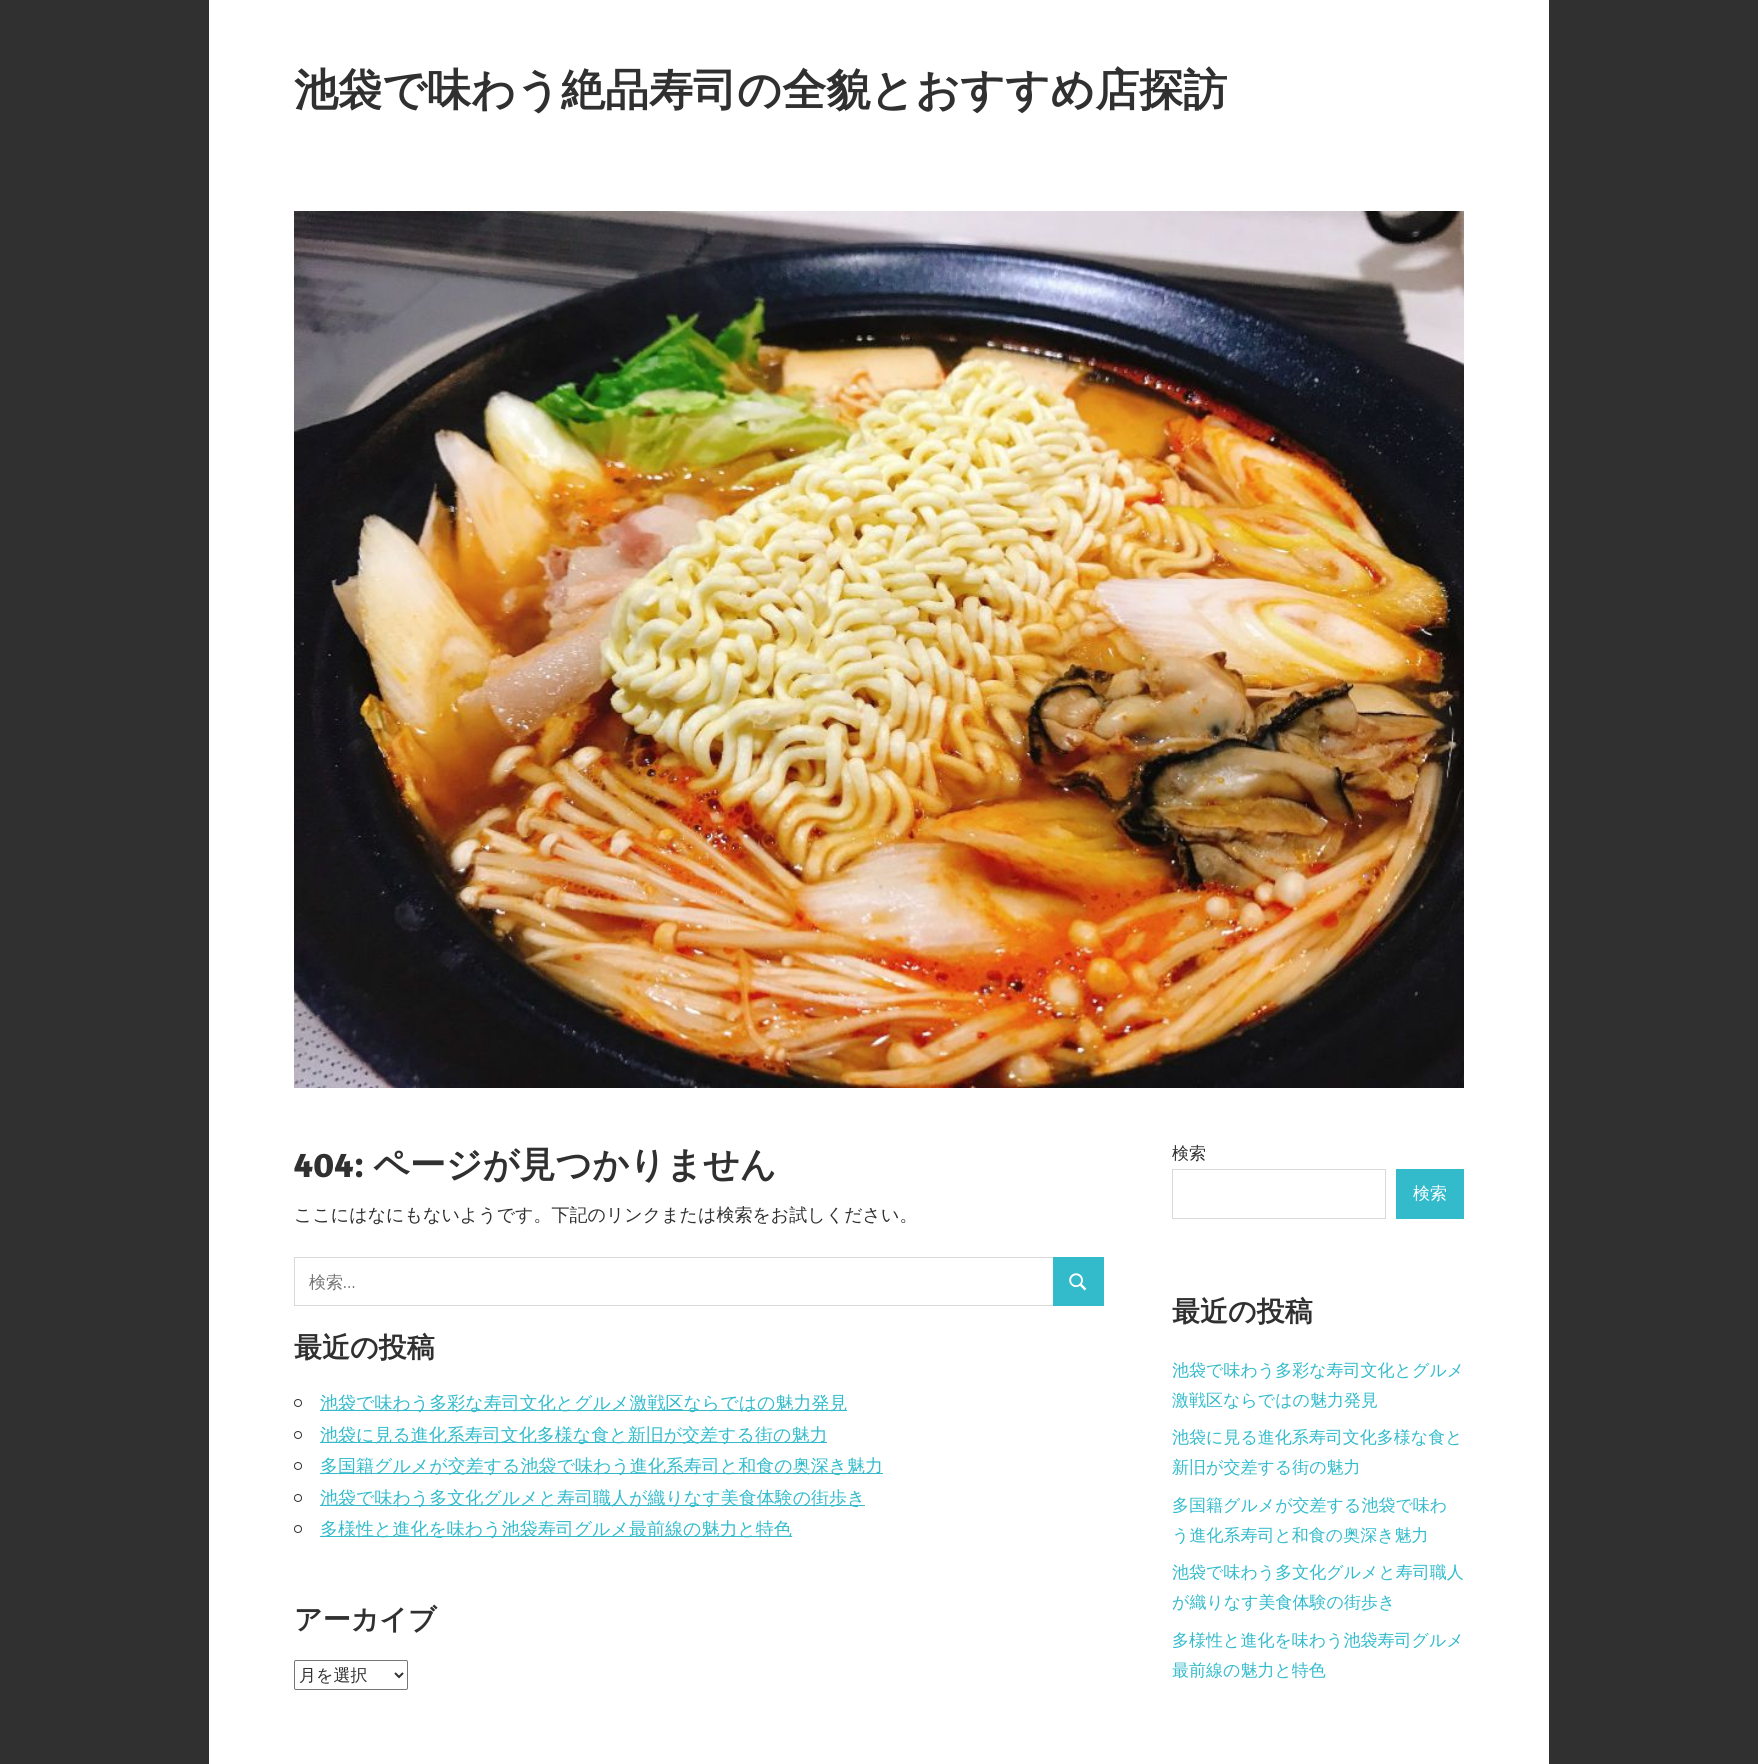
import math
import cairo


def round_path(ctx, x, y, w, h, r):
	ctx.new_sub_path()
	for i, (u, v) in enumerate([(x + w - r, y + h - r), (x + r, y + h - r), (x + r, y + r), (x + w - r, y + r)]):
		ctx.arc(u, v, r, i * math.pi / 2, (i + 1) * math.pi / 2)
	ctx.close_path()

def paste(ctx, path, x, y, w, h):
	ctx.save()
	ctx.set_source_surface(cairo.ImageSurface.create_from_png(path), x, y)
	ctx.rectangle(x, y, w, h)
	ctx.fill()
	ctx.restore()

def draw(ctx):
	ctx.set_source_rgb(0.188, 0.188, 0.188)
	ctx.paint()
	ctx.set_source_rgb(1, 1, 1)
	ctx.rectangle(209, 0, 1340, 1764)
	ctx.fill()
	ctx.select_font_face('WenQuanYi Zen Hei', cairo.FONT_SLANT_NORMAL, cairo.FONT_WEIGHT_BOLD)
	ctx.set_font_size(44)
	ctx.set_source_rgb(0.188, 0.188, 0.188)
	ctx.move_to(294, 105)
	ctx.show_text('池袋で味わう絶品寿司の全貌とおすすめ店探訪')
	paste(ctx, 'media/1.png', 294, 211, 1170, 877)
	ctx.select_font_face('Amaranth', cairo.FONT_SLANT_NORMAL, cairo.FONT_WEIGHT_BOLD)
	ctx.set_font_size(36)
	ctx.move_to(294, 1177)
	ctx.show_text('404:')
	ctx.select_font_face('WenQuanYi Zen Hei', cairo.FONT_SLANT_NORMAL, cairo.FONT_WEIGHT_BOLD)
	ctx.move_to(373, 1177)
	ctx.show_text('ページが見つかりません')
	ctx.select_font_face('WenQuanYi Zen Hei Medium')
	ctx.set_font_size(18)
	ctx.move_to(294, 1221)
	ctx.show_text('ここにはなにもないようです。下記のリンクまたは検索をお試しください。')
	ctx.rectangle(294.5, 1257.5, 759, 48)
	ctx.set_source_rgb(0.851, 0.851, 0.851)
	ctx.set_line_width(1)
	ctx.stroke()
	ctx.set_font_size(17)
	ctx.set_source_rgb(0.459, 0.459, 0.459)
	ctx.move_to(309, 1288)
	ctx.show_text('検索')
	ctx.select_font_face('Titillium Web')
	ctx.move_to(343, 1288)
	ctx.show_text('…')
	ctx.set_source_rgb(0.2, 0.733, 0.8)
	ctx.rectangle(1053, 1257, 51, 49)
	ctx.fill()
	paste(ctx, 'media/2.png', 1069, 1273, 18, 18)
	ctx.select_font_face('WenQuanYi Zen Hei', cairo.FONT_SLANT_NORMAL, cairo.FONT_WEIGHT_BOLD)
	ctx.set_font_size(28)
	ctx.set_source_rgb(0.188, 0.188, 0.188)
	ctx.move_to(294, 1357)
	ctx.show_text('最近の投稿')
	ctx.new_path()
	ctx.arc(298, 1403, 3.5, 0, 2 * math.pi)
	ctx.stroke()
	ctx.set_source_rgb(0.2, 0.733, 0.8)
	ctx.rectangle(320, 1410, 527, 1)
	ctx.fill()
	ctx.select_font_face('WenQuanYi Zen Hei Medium')
	ctx.set_font_size(18)
	ctx.move_to(320, 1409)
	ctx.show_text('池袋で味わう多彩な寿司文化とグルメ激戦区ならではの魅力発見')
	ctx.new_path()
	ctx.arc(298, 1435, 3.5, 0, 2 * math.pi)
	ctx.set_source_rgb(0.188, 0.188, 0.188)
	ctx.stroke()
	ctx.set_source_rgb(0.2, 0.733, 0.8)
	ctx.rectangle(320, 1442, 507, 1)
	ctx.fill()
	ctx.move_to(320, 1441)
	ctx.show_text('池袋に見る進化系寿司文化多様な食と新旧が交差する街の魅力')
	ctx.new_path()
	ctx.arc(298, 1466, 3.5, 0, 2 * math.pi)
	ctx.set_source_rgb(0.188, 0.188, 0.188)
	ctx.stroke()
	ctx.set_source_rgb(0.2, 0.733, 0.8)
	ctx.rectangle(320, 1473, 563, 1)
	ctx.fill()
	ctx.move_to(320, 1472)
	ctx.show_text('多国籍グルメが交差する池袋で味わう進化系寿司と和食の奥深き魅力')
	ctx.new_path()
	ctx.arc(298, 1498, 3.5, 0, 2 * math.pi)
	ctx.set_source_rgb(0.188, 0.188, 0.188)
	ctx.stroke()
	ctx.set_source_rgb(0.2, 0.733, 0.8)
	ctx.rectangle(320, 1505, 545, 1)
	ctx.fill()
	ctx.move_to(320, 1504)
	ctx.show_text('池袋で味わう多文化グルメと寿司職人が織りなす美食体験の街歩き')
	ctx.new_path()
	ctx.arc(298, 1529, 3.5, 0, 2 * math.pi)
	ctx.set_source_rgb(0.188, 0.188, 0.188)
	ctx.stroke()
	ctx.set_source_rgb(0.2, 0.733, 0.8)
	ctx.rectangle(320, 1536, 472, 1)
	ctx.fill()
	ctx.move_to(320, 1535)
	ctx.show_text('多様性と進化を味わう池袋寿司グルメ最前線の魅力と特色')
	ctx.select_font_face('WenQuanYi Zen Hei', cairo.FONT_SLANT_NORMAL, cairo.FONT_WEIGHT_BOLD)
	ctx.set_font_size(28)
	ctx.set_source_rgb(0.188, 0.188, 0.188)
	ctx.move_to(294, 1629)
	ctx.show_text('アーカイブ')
	round_path(ctx, 294.5, 1660.5, 113, 29, 1.5)
	ctx.set_source_rgb(0.463, 0.463, 0.463)
	ctx.stroke()
	ctx.new_path()
	ctx.move_to(395, 1673)
	ctx.line_to(399, 1677)
	ctx.line_to(403, 1673)
	ctx.set_source_rgb(0.188, 0.188, 0.188)
	ctx.set_line_width(2)
	ctx.stroke()
	ctx.select_font_face('WenQuanYi Zen Hei Medium')
	ctx.set_font_size(17)
	ctx.move_to(299, 1681)
	ctx.show_text('月を選択')
	ctx.move_to(1172, 1159)
	ctx.show_text('検索')
	ctx.rectangle(1172.5, 1169.5, 213, 49)
	ctx.set_source_rgb(0.851, 0.851, 0.851)
	ctx.set_line_width(1)
	ctx.stroke()
	ctx.set_source_rgb(0.2, 0.733, 0.8)
	ctx.rectangle(1396, 1169, 68, 50)
	ctx.fill()
	ctx.set_source_rgb(1, 1, 1)
	ctx.move_to(1413, 1199)
	ctx.show_text('検索')
	ctx.select_font_face('WenQuanYi Zen Hei', cairo.FONT_SLANT_NORMAL, cairo.FONT_WEIGHT_BOLD)
	ctx.set_font_size(28)
	ctx.set_source_rgb(0.188, 0.188, 0.188)
	ctx.move_to(1172, 1321)
	ctx.show_text('最近の投稿')
	ctx.select_font_face('WenQuanYi Zen Hei Medium')
	ctx.set_font_size(17)
	ctx.set_source_rgb(0.2, 0.733, 0.8)
	for x, y, s in [
		(1172, 1376, '池袋で味わう多彩な寿司文化とグルメ'),
		(1172, 1406, '激戦区ならではの魅力発見'),
		(1172, 1443, '池袋に見る進化系寿司文化多様な食と'),
		(1172, 1473, '新旧が交差する街の魅力'),
		(1172, 1511, '多国籍グルメが交差する池袋で味わ'),
		(1172, 1541, 'う進化系寿司と和食の奥深き魅力'),
		(1172, 1578, '池袋で味わう多文化グルメと寿司職人'),
		(1172, 1608, 'が織りなす美食体験の街歩き'),
		(1172, 1646, '多様性と進化を味わう池袋寿司グルメ'),
		(1172, 1676, '最前線の魅力と特色'),
	]:
		ctx.move_to(x, y)
		ctx.show_text(s)


surface = cairo.ImageSurface(cairo.FORMAT_RGB24, 1758, 1764)
ctx = cairo.Context(surface)
options = cairo.FontOptions()
options.set_hint_metrics(cairo.HINT_METRICS_OFF)
options.set_hint_style(cairo.HINT_STYLE_NONE)
ctx.set_font_options(options)
ctx.set_miter_limit(4)
draw(ctx)
surface.write_to_png('image.png')
